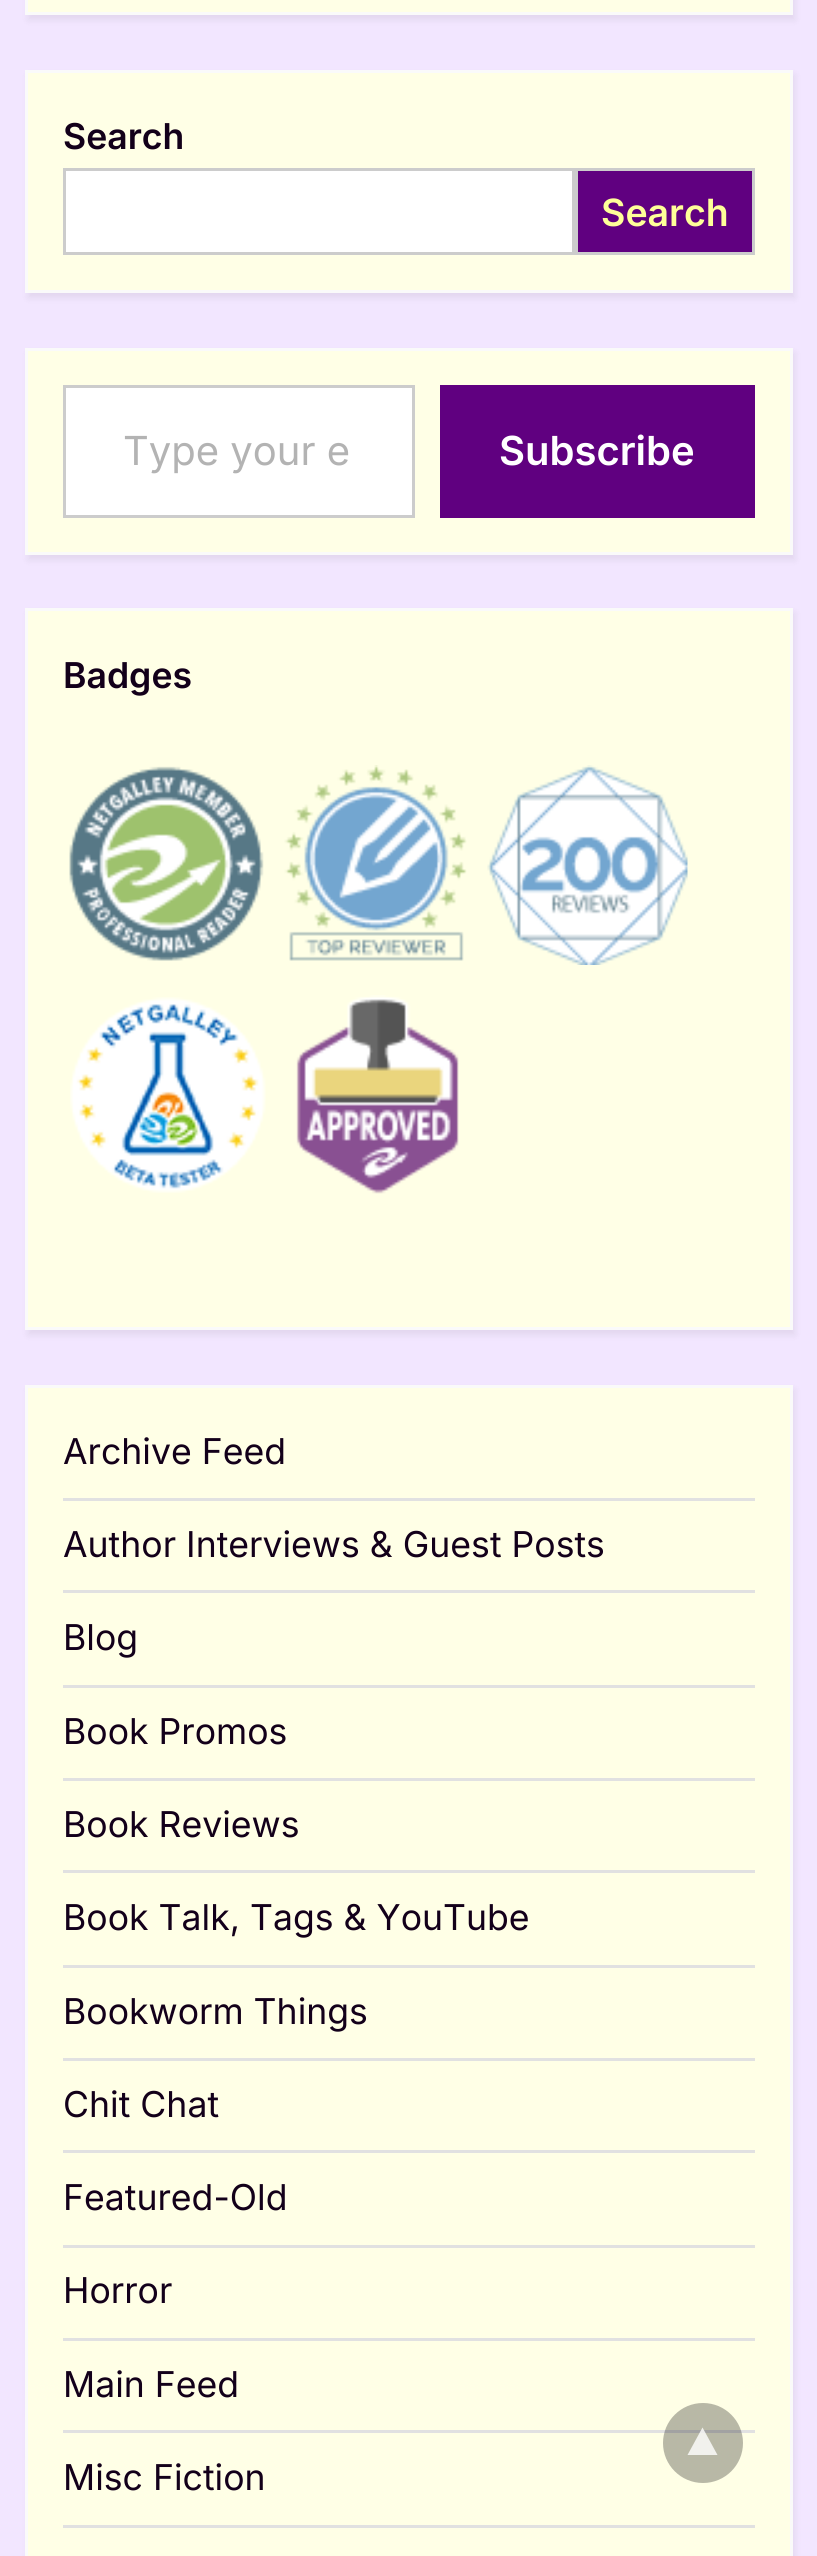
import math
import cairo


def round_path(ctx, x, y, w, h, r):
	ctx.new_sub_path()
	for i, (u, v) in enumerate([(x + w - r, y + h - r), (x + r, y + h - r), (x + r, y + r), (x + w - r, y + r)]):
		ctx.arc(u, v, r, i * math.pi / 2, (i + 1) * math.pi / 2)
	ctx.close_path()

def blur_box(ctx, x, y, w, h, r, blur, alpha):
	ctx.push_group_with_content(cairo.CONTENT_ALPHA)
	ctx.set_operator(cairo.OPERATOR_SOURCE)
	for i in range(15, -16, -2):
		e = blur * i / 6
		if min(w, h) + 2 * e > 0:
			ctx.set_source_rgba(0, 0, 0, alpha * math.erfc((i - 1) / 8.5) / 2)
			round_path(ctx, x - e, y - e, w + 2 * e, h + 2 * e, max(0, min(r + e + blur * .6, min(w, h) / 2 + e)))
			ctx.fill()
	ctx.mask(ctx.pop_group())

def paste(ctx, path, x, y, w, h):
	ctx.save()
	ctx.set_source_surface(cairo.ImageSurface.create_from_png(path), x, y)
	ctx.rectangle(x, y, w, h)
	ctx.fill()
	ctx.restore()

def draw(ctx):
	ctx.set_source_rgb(0.949, 0.902, 1)
	ctx.paint()
	ctx.set_source_rgb(0, 0, 0)
	blur_box(ctx, 28, -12, 767, 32, 0, 4, 0.07)
	ctx.set_source_rgb(1, 1, 0.902)
	ctx.rectangle(26.5, -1.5, 765, 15)
	ctx.fill_preserve()
	ctx.set_source_rgb(0.98, 0.98, 0.98)
	ctx.set_line_width(3)
	ctx.stroke()
	ctx.set_source_rgb(0, 0, 0)
	blur_box(ctx, 28, 75, 767, 223, 0, 4, 0.07)
	ctx.set_source_rgb(1, 1, 0.902)
	ctx.rectangle(26.5, 71.5, 765, 220)
	ctx.fill_preserve()
	ctx.set_source_rgb(0.98, 0.98, 0.98)
	ctx.stroke()
	ctx.select_font_face('Inter SemiBold')
	ctx.set_font_size(35.6)
	ctx.set_source_rgb(0.075, 0, 0.102)
	ctx.move_to(63, 149)
	ctx.show_text('Search')
	ctx.set_source_rgb(1, 1, 1)
	ctx.rectangle(64.5, 169.5, 509, 84)
	ctx.fill_preserve()
	ctx.set_source_rgb(0.8, 0.8, 0.8)
	ctx.stroke()
	ctx.set_source_rgb(0.376, 0, 0.502)
	ctx.rectangle(576.5, 169.5, 177, 84)
	ctx.fill_preserve()
	ctx.set_source_rgb(0.8, 0.8, 0.8)
	ctx.stroke()
	ctx.set_font_size(37.5)
	ctx.set_source_rgb(1, 1, 0.6)
	ctx.move_to(601, 226)
	ctx.show_text('Search')
	ctx.set_source_rgb(0, 0, 0)
	blur_box(ctx, 28, 353, 767, 207, 0, 4, 0.07)
	ctx.set_source_rgb(1, 1, 0.902)
	ctx.rectangle(26.5, 349.5, 765, 204)
	ctx.fill_preserve()
	ctx.set_source_rgb(0.98, 0.98, 0.98)
	ctx.stroke()
	ctx.set_source_rgb(1, 1, 1)
	ctx.rectangle(64.5, 386.5, 349, 130)
	ctx.fill_preserve()
	ctx.set_source_rgb(0.8, 0.8, 0.8)
	ctx.stroke()
	ctx.select_font_face('Inter')
	ctx.set_font_size(40)
	ctx.set_source_rgb(0.702, 0.702, 0.702)
	ctx.move_to(123, 465)
	ctx.show_text('Type your e')
	ctx.set_source_rgb(0.376, 0, 0.502)
	ctx.rectangle(440, 385, 315, 133)
	ctx.fill()
	ctx.select_font_face('Inter SemiBold')
	ctx.set_source_rgb(1, 1, 1)
	ctx.move_to(499, 465)
	ctx.show_text('Subscribe')
	ctx.set_source_rgb(0, 0, 0)
	blur_box(ctx, 28, 613, 767, 722, 0, 4, 0.07)
	ctx.set_source_rgb(1, 1, 0.902)
	ctx.rectangle(26.5, 609.5, 765, 719)
	ctx.fill_preserve()
	ctx.set_source_rgb(0.98, 0.98, 0.98)
	ctx.stroke()
	ctx.set_font_size(35.6)
	ctx.set_source_rgb(0.075, 0, 0.102)
	ctx.move_to(63, 688)
	ctx.show_text('Badges')
	paste(ctx, 'media/1.png', 69, 766, 195, 195)
	paste(ctx, 'media/2.png', 284, 765, 183, 196)
	paste(ctx, 'media/3.png', 487, 765, 201, 200)
	paste(ctx, 'media/4.png', 70, 997, 196, 196)
	paste(ctx, 'media/5.png', 296, 995, 163, 199)
	ctx.set_source_rgb(0, 0, 0)
	blur_box(ctx, 28, 1390, 767, 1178, 0, 4, 0.07)
	ctx.set_source_rgb(1, 1, 0.902)
	ctx.rectangle(26.5, 1386.5, 765, 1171)
	ctx.fill_preserve()
	ctx.set_source_rgb(0.98, 0.98, 0.98)
	ctx.stroke()
	ctx.set_source_rgb(0.882, 0.882, 0.882)
	ctx.rectangle(63, 1498, 692, 3)
	ctx.fill()
	ctx.select_font_face('Inter')
	ctx.set_source_rgb(0.075, 0, 0.102)
	ctx.move_to(63, 1464)
	ctx.show_text('Archive Feed')
	ctx.set_source_rgb(0.882, 0.882, 0.882)
	ctx.rectangle(63, 1590, 692, 3)
	ctx.fill()
	ctx.set_source_rgb(0.075, 0, 0.102)
	ctx.move_to(63, 1557)
	ctx.show_text('Author Interviews & Guest Posts')
	ctx.set_source_rgb(0.882, 0.882, 0.882)
	ctx.rectangle(63, 1685, 692, 3)
	ctx.fill()
	ctx.set_source_rgb(0.075, 0, 0.102)
	ctx.move_to(63, 1650)
	ctx.show_text('Blog')
	ctx.set_source_rgb(0.882, 0.882, 0.882)
	ctx.rectangle(63, 1778, 692, 3)
	ctx.fill()
	ctx.set_source_rgb(0.075, 0, 0.102)
	ctx.move_to(63, 1744)
	ctx.show_text('Book Promos')
	ctx.set_source_rgb(0.882, 0.882, 0.882)
	ctx.rectangle(63, 1870, 692, 3)
	ctx.fill()
	ctx.set_source_rgb(0.075, 0, 0.102)
	ctx.move_to(63, 1837)
	ctx.show_text('Book Reviews')
	ctx.set_source_rgb(0.882, 0.882, 0.882)
	ctx.rectangle(63, 1965, 692, 3)
	ctx.fill()
	ctx.set_source_rgb(0.075, 0, 0.102)
	ctx.move_to(63, 1930)
	ctx.show_text('Book Talk, Tags & YouTube')
	ctx.set_source_rgb(0.882, 0.882, 0.882)
	ctx.rectangle(63, 2058, 692, 3)
	ctx.fill()
	ctx.set_source_rgb(0.075, 0, 0.102)
	ctx.move_to(63, 2024)
	ctx.show_text('Bookworm Things')
	ctx.set_source_rgb(0.882, 0.882, 0.882)
	ctx.rectangle(63, 2150, 692, 3)
	ctx.fill()
	ctx.set_source_rgb(0.075, 0, 0.102)
	ctx.move_to(63, 2117)
	ctx.show_text('Chit Chat')
	ctx.set_source_rgb(0.882, 0.882, 0.882)
	ctx.rectangle(63, 2245, 692, 3)
	ctx.fill()
	ctx.set_source_rgb(0.075, 0, 0.102)
	ctx.move_to(63, 2210)
	ctx.show_text('Featured-Old')
	ctx.set_source_rgb(0.882, 0.882, 0.882)
	ctx.rectangle(63, 2338, 692, 3)
	ctx.fill()
	ctx.set_source_rgb(0.075, 0, 0.102)
	ctx.move_to(63, 2303)
	ctx.show_text('Horror')
	ctx.set_source_rgb(0.882, 0.882, 0.882)
	ctx.rectangle(63, 2430, 692, 3)
	ctx.fill()
	ctx.set_source_rgb(0.075, 0, 0.102)
	ctx.move_to(63, 2397)
	ctx.show_text('Main Feed')
	ctx.set_source_rgb(0.882, 0.882, 0.882)
	ctx.rectangle(63, 2525, 692, 3)
	ctx.fill()
	ctx.set_source_rgb(0.075, 0, 0.102)
	ctx.move_to(63, 2490)
	ctx.show_text('Misc Fiction')
	ctx.set_source_rgba(0, 0, 0, 0.28)
	ctx.new_path()
	ctx.arc(703, 2443, 40, 0, 2 * math.pi)
	ctx.fill()
	ctx.set_source_rgba(1, 1, 1, 0.8)
	ctx.new_path()
	ctx.move_to(717.5, 2455)
	ctx.line_to(687.5, 2455)
	ctx.line_to(702.5, 2427.5)
	ctx.close_path()
	ctx.fill()


surface = cairo.ImageSurface(cairo.FORMAT_RGB24, 817, 2556)
ctx = cairo.Context(surface)
options = cairo.FontOptions()
options.set_hint_metrics(cairo.HINT_METRICS_OFF)
options.set_hint_style(cairo.HINT_STYLE_NONE)
ctx.set_font_options(options)
ctx.set_miter_limit(4)
draw(ctx)
surface.write_to_png('image.png')
